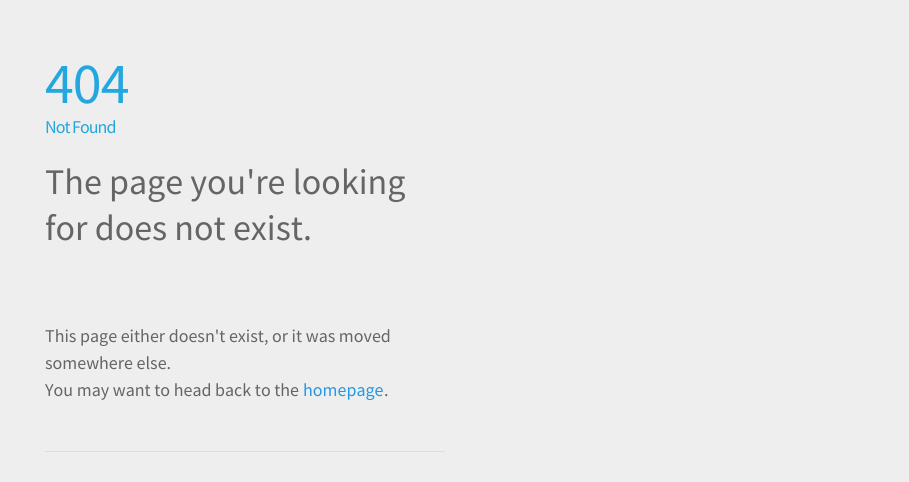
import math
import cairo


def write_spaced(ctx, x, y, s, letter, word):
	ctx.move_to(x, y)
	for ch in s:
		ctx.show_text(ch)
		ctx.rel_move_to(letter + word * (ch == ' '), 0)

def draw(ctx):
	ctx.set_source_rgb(0.933, 0.933, 0.933)
	ctx.paint()
	ctx.select_font_face('Source Sans Pro')
	ctx.set_font_size(58)
	ctx.set_source_rgb(0.137, 0.655, 0.871)
	write_spaced(ctx, 45, 103, '404', -1, 0)
	ctx.set_font_size(18)
	write_spaced(ctx, 45, 133, 'Not Found', -1, 0)
	ctx.set_font_size(36)
	ctx.set_source_rgb(0.396, 0.396, 0.396)
	ctx.move_to(45, 194)
	ctx.show_text('The page you\'re looking')
	ctx.move_to(45, 240)
	ctx.show_text('for does not exist.')
	ctx.set_font_size(18)
	for x, y, s in [
		(45, 342, 'This page either doesn\'t exist, or it was moved'),
		(45, 369, 'somewhere else.'),
		(45, 396, 'You may want to head back to the'),
	]:
		ctx.move_to(x, y)
		ctx.show_text(s)
	ctx.set_source_rgb(0.141, 0.596, 0.89)
	ctx.move_to(303, 396)
	ctx.show_text('homepage')
	ctx.set_source_rgb(0.396, 0.396, 0.396)
	ctx.move_to(384, 396)
	ctx.show_text('.')
	ctx.set_source_rgb(0.867, 0.867, 0.867)
	ctx.rectangle(45, 451, 400, 1)
	ctx.fill()


surface = cairo.ImageSurface(cairo.FORMAT_RGB24, 909, 482)
ctx = cairo.Context(surface)
options = cairo.FontOptions()
options.set_hint_metrics(cairo.HINT_METRICS_OFF)
options.set_hint_style(cairo.HINT_STYLE_NONE)
ctx.set_font_options(options)
ctx.set_miter_limit(4)
draw(ctx)
surface.write_to_png('image.png')
